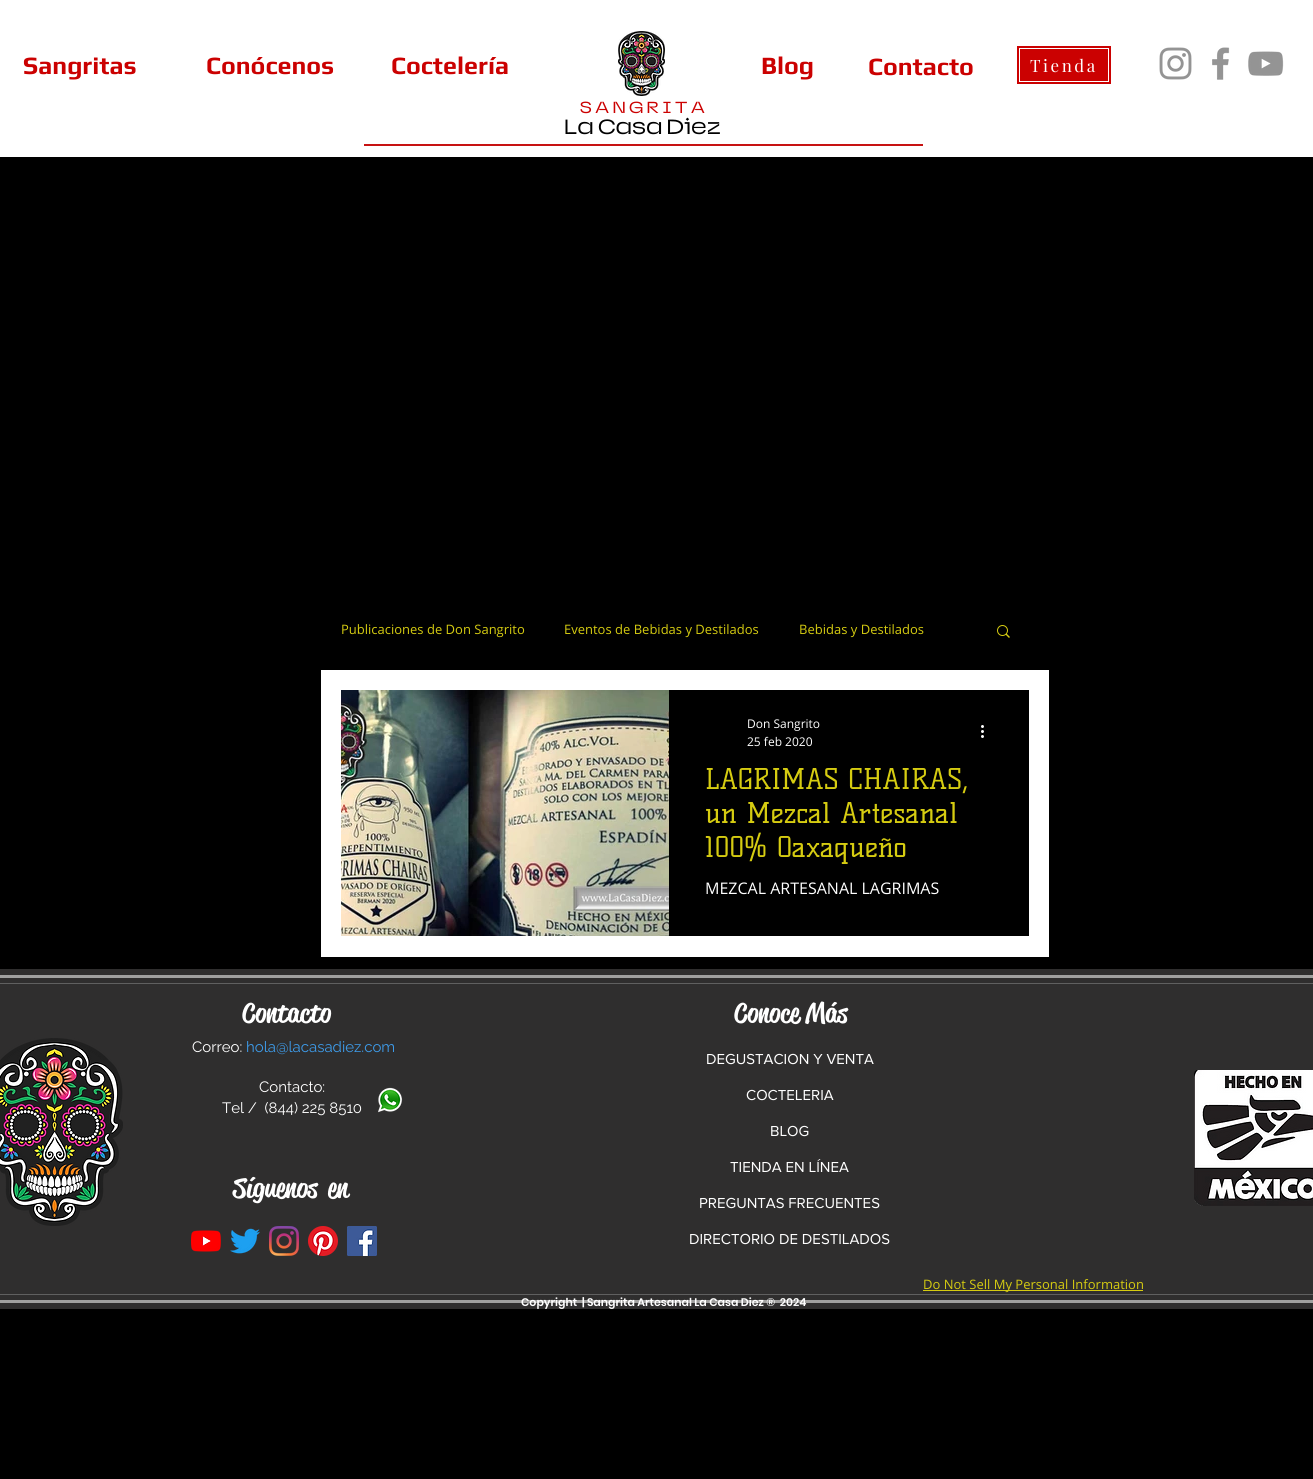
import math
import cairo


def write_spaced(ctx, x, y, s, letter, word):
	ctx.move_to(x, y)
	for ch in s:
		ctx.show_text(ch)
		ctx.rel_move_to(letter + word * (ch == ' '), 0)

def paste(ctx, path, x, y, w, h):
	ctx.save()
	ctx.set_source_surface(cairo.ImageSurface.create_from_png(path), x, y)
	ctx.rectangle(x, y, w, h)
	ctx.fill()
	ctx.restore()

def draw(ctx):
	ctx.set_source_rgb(0, 0, 0)
	ctx.paint()
	ctx.set_source_rgb(1, 1, 1)
	ctx.rectangle(0, 0, 1313, 157)
	ctx.fill()
	ctx.select_font_face('Play', cairo.FONT_SLANT_NORMAL, cairo.FONT_WEIGHT_BOLD)
	ctx.set_font_size(25)
	ctx.set_source_rgb(0.796, 0.004, 0.004)
	for x, y, s in [
		(23, 74, 'Sangritas'),
		(206, 74, 'Conócenos'),
		(391, 74, 'Coctelería'),
	]:
		ctx.move_to(x, y)
		ctx.show_text(s)
	paste(ctx, 'media/1.png', 618, 31, 47, 65)
	ctx.move_to(761, 74)
	ctx.show_text('Blog')
	ctx.move_to(868, 75)
	ctx.show_text('Contacto')
	ctx.rectangle(1017, 46, 94, 38)
	ctx.fill()
	ctx.rectangle(1019.5, 48.5, 89, 33)
	ctx.set_source_rgb(1, 1, 1)
	ctx.set_line_width(1)
	ctx.stroke()
	ctx.select_font_face('Playfair Display')
	ctx.set_font_size(17)
	write_spaced(ctx, 1030, 72, 'Tienda', 2.5, 0)
	paste(ctx, 'media/2.png', 1159, 47, 33, 33)
	paste(ctx, 'media/3.png', 1212, 47, 18, 33)
	paste(ctx, 'media/4.png', 1248, 51, 36, 25)
	ctx.select_font_face('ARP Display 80')
	ctx.set_font_size(14)
	ctx.set_source_rgb(0.796, 0.004, 0.004)
	ctx.move_to(580, 113)
	ctx.show_text('S A N G R I T A')
	ctx.set_font_size(18)
	ctx.set_source_rgb(0, 0, 0)
	ctx.move_to(564, 134)
	ctx.show_text('La Casa Diez')
	ctx.set_source_rgb(0.78, 0.071, 0.071)
	ctx.rectangle(364, 144, 559, 2)
	ctx.fill()
	ctx.set_source_rgb(1, 1, 1)
	ctx.rectangle(321, 670, 728, 287)
	ctx.fill()
	ctx.select_font_face('Open Sans')
	ctx.set_font_size(13)
	ctx.set_source_rgb(0.839, 0.8, 0.067)
	for x, y, s in [
		(341, 634, 'Publicaciones de Don Sangrito'),
		(564, 634, 'Eventos de Bebidas y Destilados'),
		(799, 634, 'Bebidas y Destilados'),
	]:
		ctx.move_to(x, y)
		ctx.show_text(s)
	paste(ctx, 'media/5.png', 997, 625, 13, 13)
	paste(ctx, 'media/6.png', 341, 690, 328, 246)
	ctx.set_source_rgb(0, 0, 0)
	ctx.rectangle(669, 690, 360, 246)
	ctx.fill()
	ctx.set_font_size(12)
	ctx.set_source_rgb(1, 1, 1)
	ctx.move_to(747, 728)
	ctx.show_text('Don Sangrito')
	ctx.move_to(747, 746)
	ctx.show_text('25 feb 2020')
	paste(ctx, 'media/7.png', 981, 725, 3, 13)
	ctx.select_font_face('Kelly Slab')
	ctx.set_font_size(28)
	ctx.set_source_rgb(0.839, 0.8, 0.067)
	for x, y, s in [
		(705, 789, 'LAGRIMAS CHAIRAS,'),
		(705, 823, 'un Mezcal Artesanal'),
		(705, 857, '100% Oaxaqueño'),
	]:
		ctx.move_to(x, y)
		ctx.show_text(s)
	ctx.select_font_face('Open Sans')
	ctx.set_font_size(16)
	ctx.set_source_rgb(1, 1, 1)
	ctx.move_to(705, 894)
	ctx.show_text('MEZCAL ARTESANAL LAGRIMAS')
	ctx.set_source_rgb(0.184, 0.18, 0.18)
	ctx.rectangle(0, 969, 1313, 340)
	ctx.fill()
	ctx.set_source_rgb(0.627, 0.627, 0.624)
	ctx.rectangle(0, 975, 1313, 3)
	ctx.rectangle(0, 1300, 1313, 3)
	ctx.fill()
	ctx.set_source_rgb(0.376, 0.376, 0.376)
	ctx.rectangle(0, 983, 1313, 1)
	ctx.rectangle(0, 1294, 1313, 1)
	ctx.fill()
	ctx.select_font_face('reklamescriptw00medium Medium')
	ctx.set_font_size(27)
	ctx.set_source_rgb(1, 1, 1)
	ctx.move_to(242, 1022)
	ctx.show_text('Contacto')
	ctx.move_to(734, 1022)
	ctx.show_text('Conoce Más')
	paste(ctx, 'media/8.png', 0, 1038, 123, 188)
	ctx.select_font_face('Raleway')
	ctx.set_font_size(15)
	ctx.move_to(192, 1052)
	ctx.show_text('Correo:')
	ctx.set_source_rgb(0.239, 0.608, 0.914)
	ctx.move_to(246, 1052)
	ctx.show_text('hola@lacasadiez.com')
	ctx.set_source_rgb(1, 1, 1)
	ctx.move_to(259, 1092)
	ctx.show_text('Contacto:')
	ctx.move_to(222, 1113)
	ctx.show_text('Tel /  (844) 225 8510')
	ctx.select_font_face('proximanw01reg')
	for x, y, s in [
		(706, 1064, 'DEGUSTACION Y VENTA'),
		(746, 1100, 'COCTELERIA'),
		(770, 1136, 'BLOG'),
		(730, 1172, 'TIENDA EN LÍNEA'),
		(699, 1208, 'PREGUNTAS FRECUENTES'),
		(689, 1244, 'DIRECTORIO DE DESTILADOS'),
	]:
		ctx.move_to(x, y)
		ctx.show_text(s)
	paste(ctx, 'media/9.png', 1194, 1070, 119, 136)
	paste(ctx, 'media/10.png', 378, 1087, 25, 26)
	ctx.select_font_face('reklamescriptw00medium Medium')
	ctx.set_font_size(27)
	ctx.move_to(233, 1197)
	ctx.show_text('Síguenos')
	ctx.move_to(328, 1197)
	ctx.show_text('en')
	paste(ctx, 'media/11.png', 191, 1230, 30, 22)
	paste(ctx, 'media/12.png', 230, 1228, 30, 26)
	paste(ctx, 'media/13.png', 269, 1226, 30, 30)
	paste(ctx, 'media/14.png', 308, 1226, 30, 30)
	paste(ctx, 'media/15.png', 347, 1226, 30, 30)
	ctx.set_source_rgb(0.839, 0.8, 0.067)
	ctx.rectangle(923, 1290, 220, 1)
	ctx.fill()
	ctx.select_font_face('Open Sans')
	ctx.set_font_size(13)
	ctx.move_to(923, 1289)
	ctx.show_text('Do Not Sell My Personal Information')
	ctx.select_font_face('Poppins SemiBold')
	ctx.set_font_size(11)
	ctx.set_source_rgb(1, 1, 1)
	ctx.move_to(521, 1306)
	ctx.show_text('Copyright  | Sangrita Artesanal La Casa Diez ®  2024')


surface = cairo.ImageSurface(cairo.FORMAT_RGB24, 1313, 1479)
ctx = cairo.Context(surface)
options = cairo.FontOptions()
options.set_hint_metrics(cairo.HINT_METRICS_OFF)
options.set_hint_style(cairo.HINT_STYLE_NONE)
ctx.set_font_options(options)
ctx.set_miter_limit(4)
draw(ctx)
surface.write_to_png('image.png')
